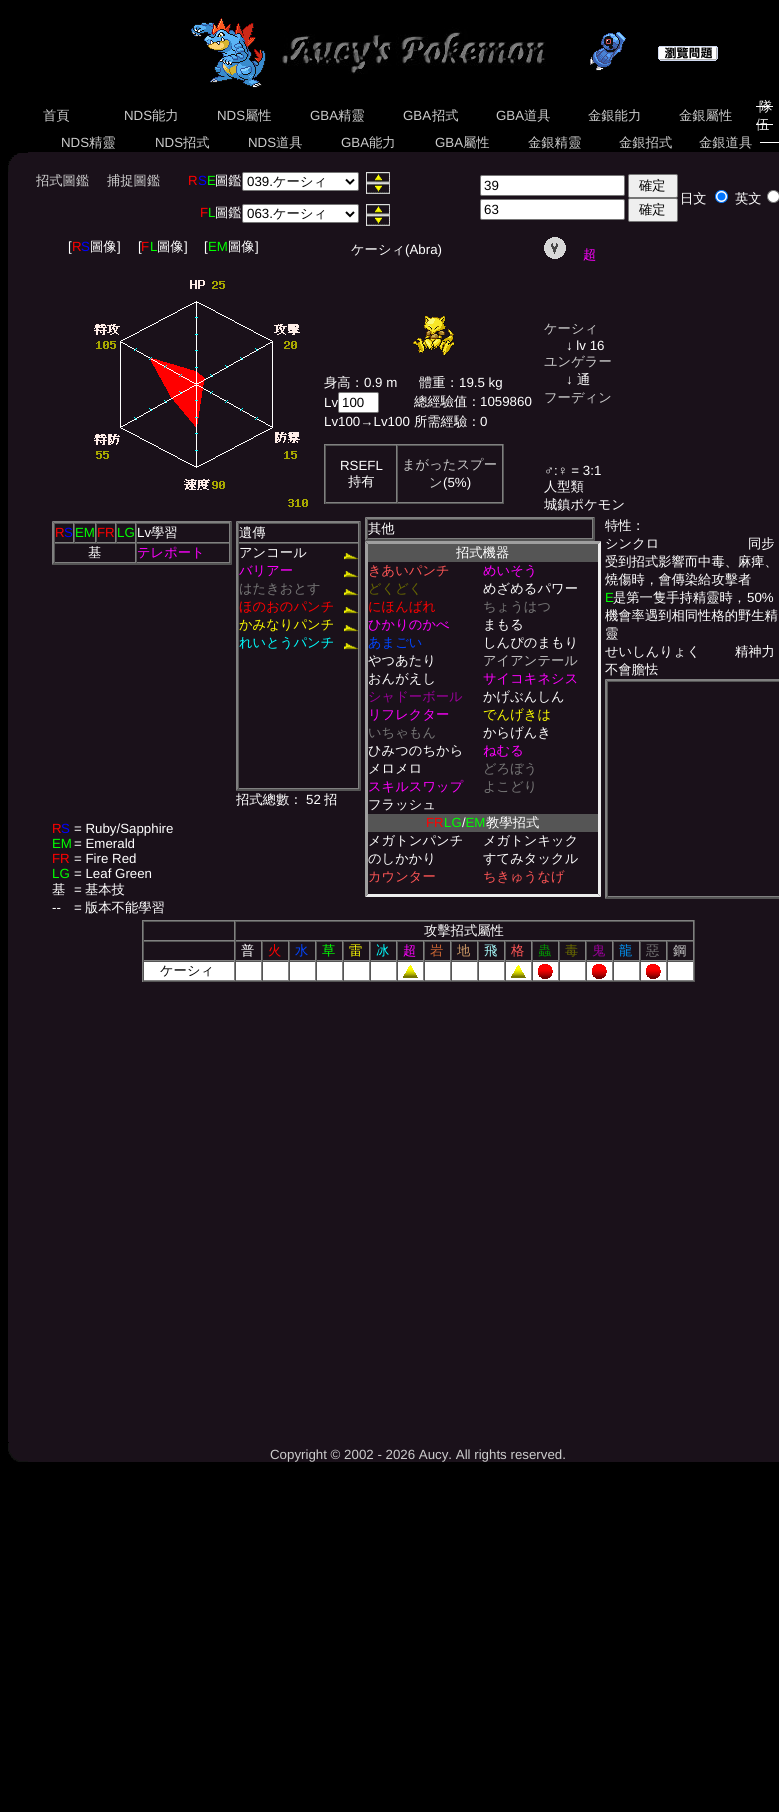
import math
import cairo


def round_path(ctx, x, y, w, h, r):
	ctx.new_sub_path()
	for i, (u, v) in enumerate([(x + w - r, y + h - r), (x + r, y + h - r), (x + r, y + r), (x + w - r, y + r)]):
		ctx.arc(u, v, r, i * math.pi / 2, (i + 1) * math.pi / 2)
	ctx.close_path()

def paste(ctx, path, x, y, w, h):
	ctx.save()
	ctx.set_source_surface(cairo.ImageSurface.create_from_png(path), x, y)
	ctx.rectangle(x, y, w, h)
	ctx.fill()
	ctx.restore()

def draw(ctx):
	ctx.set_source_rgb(0, 0, 0)
	ctx.paint()
	paste(ctx, 'media/1.png', 191, 18, 75, 70)
	paste(ctx, 'media/2.png', 280, 27, 266, 47)
	paste(ctx, 'media/3.png', 590, 32, 36, 39)
	paste(ctx, 'media/4.png', 658, 46, 60, 15)
	ctx.select_font_face('WenQuanYi Zen Hei Medium')
	ctx.set_font_size(13.3)
	ctx.set_source_rgb(0.8, 0.8, 0.8)
	ctx.move_to(43, 120)
	ctx.show_text('首頁')
	ctx.select_font_face('Liberation Sans')
	ctx.move_to(124, 120)
	ctx.show_text('NDS')
	ctx.select_font_face('WenQuanYi Zen Hei Medium')
	ctx.move_to(152, 120)
	ctx.show_text('能力')
	ctx.select_font_face('Liberation Sans')
	ctx.move_to(217, 120)
	ctx.show_text('NDS')
	ctx.select_font_face('WenQuanYi Zen Hei Medium')
	ctx.move_to(245, 120)
	ctx.show_text('屬性')
	ctx.select_font_face('Liberation Sans')
	ctx.move_to(310, 120)
	ctx.show_text('GBA')
	ctx.select_font_face('WenQuanYi Zen Hei Medium')
	ctx.move_to(338, 120)
	ctx.show_text('精靈')
	ctx.select_font_face('Liberation Sans')
	ctx.move_to(403, 120)
	ctx.show_text('GBA')
	ctx.select_font_face('WenQuanYi Zen Hei Medium')
	ctx.move_to(432, 120)
	ctx.show_text('招式')
	ctx.select_font_face('Liberation Sans')
	ctx.move_to(496, 120)
	ctx.show_text('GBA')
	ctx.select_font_face('WenQuanYi Zen Hei Medium')
	for x, y, s in [
		(524, 120, '道具'),
		(588, 120, '金銀能力'),
		(679, 120, '金銀屬性'),
	]:
		ctx.move_to(x, y)
		ctx.show_text(s)
	ctx.set_source_rgb(1, 1, 1)
	ctx.move_to(759, 111)
	ctx.show_text('隊')
	ctx.rectangle(756, 106, 17, 1)
	ctx.fill()
	ctx.move_to(756, 129)
	ctx.show_text('伍')
	ctx.rectangle(756, 124, 17, 1)
	ctx.fill()
	ctx.select_font_face('Liberation Sans')
	ctx.set_source_rgb(0.8, 0.8, 0.8)
	ctx.move_to(61, 147)
	ctx.show_text('NDS')
	ctx.select_font_face('WenQuanYi Zen Hei Medium')
	ctx.move_to(89, 147)
	ctx.show_text('精靈')
	ctx.select_font_face('Liberation Sans')
	ctx.move_to(155, 147)
	ctx.show_text('NDS')
	ctx.select_font_face('WenQuanYi Zen Hei Medium')
	ctx.move_to(183, 147)
	ctx.show_text('招式')
	ctx.select_font_face('Liberation Sans')
	ctx.move_to(248, 147)
	ctx.show_text('NDS')
	ctx.select_font_face('WenQuanYi Zen Hei Medium')
	ctx.move_to(276, 147)
	ctx.show_text('道具')
	ctx.select_font_face('Liberation Sans')
	ctx.move_to(341, 147)
	ctx.show_text('GBA')
	ctx.select_font_face('WenQuanYi Zen Hei Medium')
	ctx.move_to(369, 147)
	ctx.show_text('能力')
	ctx.select_font_face('Liberation Sans')
	ctx.move_to(435, 147)
	ctx.show_text('GBA')
	ctx.select_font_face('WenQuanYi Zen Hei Medium')
	for x, y, s in [
		(463, 147, '屬性'),
		(528, 147, '金銀精靈'),
		(619, 147, '金銀招式'),
		(699, 147, '金銀道具'),
	]:
		ctx.move_to(x, y)
		ctx.show_text(s)
	ctx.set_source_rgb(1, 1, 1)
	ctx.rectangle(760, 142, 19, 1)
	ctx.fill()
	ctx.set_source_rgb(0.102, 0.067, 0.102)
	ctx.rectangle(8, 152, 771, 1310)
	ctx.fill()
	paste(ctx, 'media/5.png', 8, 152, 20, 20)
	ctx.set_source_rgb(0.8, 0.8, 0.8)
	ctx.move_to(36, 185)
	ctx.show_text('招式圖鑑')
	ctx.move_to(107, 185)
	ctx.show_text('捕捉圖鑑')
	ctx.select_font_face('Liberation Sans')
	ctx.set_source_rgb(1, 0, 0)
	ctx.move_to(188, 185)
	ctx.show_text('R')
	ctx.set_source_rgb(0, 0, 1)
	ctx.move_to(198, 185)
	ctx.show_text('S')
	ctx.set_source_rgb(0, 1, 0)
	ctx.move_to(207, 185)
	ctx.show_text('E')
	ctx.select_font_face('WenQuanYi Zen Hei Medium')
	ctx.set_source_rgb(1, 1, 1)
	ctx.move_to(215, 185)
	ctx.show_text('圖鑑')
	round_path(ctx, 242.5, 172.5, 116, 18, 1.5)
	ctx.fill_preserve()
	ctx.set_source_rgb(0.463, 0.463, 0.463)
	ctx.set_line_width(1)
	ctx.stroke()
	ctx.new_path()
	ctx.move_to(346, 179.5)
	ctx.line_to(350, 183.5)
	ctx.line_to(354, 179.5)
	ctx.set_source_rgb(0, 0, 0)
	ctx.set_line_width(2)
	ctx.stroke()
	ctx.select_font_face('Liberation Sans')
	ctx.move_to(247, 186)
	ctx.show_text('039.')
	ctx.select_font_face('WenQuanYi Zen Hei Medium')
	ctx.move_to(273, 186)
	ctx.show_text('ケーシィ')
	paste(ctx, 'media/6.png', 366, 172, 24, 22)
	ctx.select_font_face('Liberation Sans')
	ctx.set_source_rgb(1, 0, 0)
	ctx.move_to(200, 217)
	ctx.show_text('F')
	ctx.set_source_rgb(0, 1, 0)
	ctx.move_to(208, 217)
	ctx.show_text('L')
	ctx.select_font_face('WenQuanYi Zen Hei Medium')
	ctx.set_source_rgb(1, 1, 1)
	ctx.move_to(215, 217)
	ctx.show_text('圖鑑')
	round_path(ctx, 242.5, 204.5, 116, 18, 1.5)
	ctx.fill_preserve()
	ctx.set_source_rgb(0.463, 0.463, 0.463)
	ctx.set_line_width(1)
	ctx.stroke()
	ctx.new_path()
	ctx.move_to(346, 212)
	ctx.line_to(350, 216)
	ctx.line_to(354, 212)
	ctx.set_source_rgb(0, 0, 0)
	ctx.set_line_width(2)
	ctx.stroke()
	ctx.select_font_face('Liberation Sans')
	ctx.move_to(247, 218)
	ctx.show_text('063.')
	ctx.select_font_face('WenQuanYi Zen Hei Medium')
	ctx.move_to(273, 218)
	ctx.show_text('ケーシィ')
	paste(ctx, 'media/6.png', 366, 204, 24, 22)
	ctx.set_source_rgb(1, 1, 1)
	round_path(ctx, 480.5, 175.5, 144, 20, 1.5)
	ctx.fill_preserve()
	ctx.set_source_rgb(0.463, 0.463, 0.463)
	ctx.set_line_width(1)
	ctx.stroke()
	ctx.select_font_face('Liberation Sans')
	ctx.set_source_rgb(0, 0, 0)
	ctx.move_to(484, 190)
	ctx.show_text('39')
	ctx.set_source_rgb(0.937, 0.937, 0.937)
	round_path(ctx, 628.5, 174.5, 49, 23, 1.5)
	ctx.fill_preserve()
	ctx.set_source_rgb(0.463, 0.463, 0.463)
	ctx.stroke()
	ctx.select_font_face('WenQuanYi Zen Hei Medium')
	ctx.set_source_rgb(0, 0, 0)
	ctx.move_to(639, 190)
	ctx.show_text('確定')
	ctx.set_source_rgb(1, 1, 1)
	round_path(ctx, 480.5, 199.5, 144, 20, 1.5)
	ctx.fill_preserve()
	ctx.set_source_rgb(0.463, 0.463, 0.463)
	ctx.stroke()
	ctx.select_font_face('Liberation Sans')
	ctx.set_source_rgb(0, 0, 0)
	ctx.move_to(484, 214)
	ctx.show_text('63')
	ctx.set_source_rgb(0.937, 0.937, 0.937)
	round_path(ctx, 628.5, 198.5, 49, 23, 1.5)
	ctx.fill_preserve()
	ctx.set_source_rgb(0.463, 0.463, 0.463)
	ctx.stroke()
	ctx.select_font_face('WenQuanYi Zen Hei Medium')
	ctx.set_source_rgb(0, 0, 0)
	ctx.move_to(639, 214)
	ctx.show_text('確定')
	ctx.set_source_rgb(1, 1, 1)
	ctx.move_to(680, 203)
	ctx.show_text('日文')
	ctx.new_path()
	ctx.arc(721.5, 196.5, 6, 0, 2 * math.pi)
	ctx.fill_preserve()
	ctx.set_source_rgb(0, 0.459, 1)
	ctx.stroke()
	ctx.arc(721.5, 196.5, 4, 0, 2 * math.pi)
	ctx.fill()
	ctx.set_source_rgb(1, 1, 1)
	ctx.move_to(735, 203)
	ctx.show_text('英文')
	ctx.new_path()
	ctx.arc(773.5, 196.5, 6, 0, 2 * math.pi)
	ctx.fill_preserve()
	ctx.set_source_rgb(0.463, 0.463, 0.463)
	ctx.stroke()
	ctx.select_font_face('Liberation Sans')
	ctx.set_source_rgb(1, 1, 1)
	ctx.move_to(68, 251)
	ctx.show_text('[')
	ctx.set_source_rgb(1, 0, 0)
	ctx.move_to(72, 251)
	ctx.show_text('R')
	ctx.set_source_rgb(0, 0, 1)
	ctx.move_to(81, 251)
	ctx.show_text('S')
	ctx.select_font_face('WenQuanYi Zen Hei Medium')
	ctx.set_source_rgb(1, 1, 1)
	ctx.move_to(90, 251)
	ctx.show_text('圖像')
	ctx.select_font_face('Liberation Sans')
	ctx.move_to(117, 251)
	ctx.show_text(']')
	ctx.move_to(138, 251)
	ctx.show_text('[')
	ctx.set_source_rgb(1, 0, 0)
	ctx.move_to(141, 251)
	ctx.show_text('F')
	ctx.set_source_rgb(0, 1, 0)
	ctx.move_to(150, 251)
	ctx.show_text('L')
	ctx.select_font_face('WenQuanYi Zen Hei Medium')
	ctx.set_source_rgb(1, 1, 1)
	ctx.move_to(157, 251)
	ctx.show_text('圖像')
	ctx.select_font_face('Liberation Sans')
	ctx.move_to(184, 251)
	ctx.show_text(']')
	ctx.move_to(204, 251)
	ctx.show_text('[')
	ctx.set_source_rgb(0, 1, 0)
	ctx.move_to(208, 251)
	ctx.show_text('EM')
	ctx.select_font_face('WenQuanYi Zen Hei Medium')
	ctx.set_source_rgb(1, 1, 1)
	ctx.move_to(228, 251)
	ctx.show_text('圖像')
	ctx.select_font_face('Liberation Sans')
	ctx.move_to(255, 251)
	ctx.show_text(']')
	paste(ctx, 'media/7.png', 94, 280, 214, 227)
	ctx.select_font_face('WenQuanYi Zen Hei Medium')
	ctx.move_to(351, 254)
	ctx.show_text('ケーシィ')
	ctx.select_font_face('Liberation Sans')
	ctx.move_to(405, 254)
	ctx.show_text('(Abra)')
	paste(ctx, 'media/8.png', 544, 237, 22, 22)
	ctx.select_font_face('WenQuanYi Zen Hei Medium')
	ctx.set_source_rgb(1, 0, 1)
	ctx.move_to(583, 259)
	ctx.show_text('超')
	paste(ctx, 'media/9.png', 413, 316, 42, 40)
	ctx.set_source_rgb(1, 1, 1)
	ctx.move_to(324, 387)
	ctx.show_text('身高：')
	ctx.select_font_face('Liberation Sans')
	ctx.move_to(364, 387)
	ctx.show_text('0.9 m')
	ctx.select_font_face('WenQuanYi Zen Hei Medium')
	ctx.move_to(419, 387)
	ctx.show_text('體重：')
	ctx.select_font_face('Liberation Sans')
	ctx.move_to(459, 387)
	ctx.show_text('19.5 kg')
	ctx.move_to(324, 407)
	ctx.show_text('Lv')
	round_path(ctx, 338.5, 392.5, 40, 20, 1.5)
	ctx.fill_preserve()
	ctx.set_source_rgb(0.463, 0.463, 0.463)
	ctx.stroke()
	ctx.set_source_rgb(0, 0, 0)
	ctx.move_to(342, 407)
	ctx.show_text('100')
	ctx.select_font_face('WenQuanYi Zen Hei Medium')
	ctx.set_source_rgb(1, 1, 1)
	ctx.move_to(414, 406)
	ctx.show_text('總經驗值：')
	ctx.select_font_face('Liberation Sans')
	ctx.move_to(480, 406)
	ctx.show_text('1059860')
	ctx.move_to(324, 426)
	ctx.show_text('Lv100→Lv100')
	ctx.select_font_face('WenQuanYi Zen Hei Medium')
	ctx.move_to(414, 426)
	ctx.show_text('所需經驗：')
	ctx.select_font_face('Liberation Sans')
	ctx.move_to(480, 426)
	ctx.show_text('0')
	ctx.set_source_rgb(0.502, 0.502, 0.502)
	ctx.rectangle(324, 444, 180, 1)
	ctx.fill()
	ctx.set_source_rgb(0.333, 0.333, 0.333)
	ctx.rectangle(503, 444, 1, 60)
	ctx.rectangle(324, 503, 180, 1)
	ctx.fill()
	ctx.set_source_rgb(0.502, 0.502, 0.502)
	ctx.rectangle(324, 444, 1, 60)
	ctx.fill()
	ctx.set_source_rgb(0.333, 0.333, 0.333)
	ctx.rectangle(325, 445, 178, 1)
	ctx.fill()
	ctx.set_source_rgb(0.502, 0.502, 0.502)
	ctx.rectangle(396, 445, 1, 58)
	ctx.rectangle(325, 502, 72, 1)
	ctx.fill()
	ctx.set_source_rgb(0.333, 0.333, 0.333)
	ctx.rectangle(325, 445, 1, 58)
	ctx.fill()
	ctx.set_source_rgb(1, 1, 1)
	ctx.move_to(340, 470)
	ctx.show_text('RSEFL')
	ctx.select_font_face('WenQuanYi Zen Hei Medium')
	ctx.move_to(348, 486)
	ctx.show_text('持有')
	ctx.set_source_rgb(0.502, 0.502, 0.502)
	ctx.rectangle(502, 445, 1, 58)
	ctx.rectangle(397, 502, 106, 1)
	ctx.fill()
	ctx.set_source_rgb(0.333, 0.333, 0.333)
	ctx.rectangle(397, 445, 1, 58)
	ctx.fill()
	ctx.set_source_rgb(0.8, 0.8, 0.8)
	ctx.move_to(402, 469)
	ctx.show_text('まがったスプー')
	ctx.move_to(429, 487)
	ctx.show_text('ン')
	ctx.select_font_face('Liberation Sans')
	ctx.set_source_rgb(1, 1, 1)
	ctx.move_to(443, 487)
	ctx.show_text('(5%)')
	ctx.select_font_face('WenQuanYi Zen Hei Medium')
	ctx.set_source_rgb(0.8, 0.8, 0.8)
	ctx.move_to(544, 333)
	ctx.show_text('ケーシィ')
	ctx.select_font_face('Liberation Sans')
	ctx.set_source_rgb(1, 1, 1)
	ctx.move_to(566, 350)
	ctx.show_text('↓ lv 16')
	ctx.select_font_face('WenQuanYi Zen Hei Medium')
	ctx.set_source_rgb(0.8, 0.8, 0.8)
	ctx.move_to(544, 366)
	ctx.show_text('ユンゲラー')
	ctx.select_font_face('Liberation Sans')
	ctx.set_source_rgb(1, 1, 1)
	ctx.move_to(566, 384)
	ctx.show_text('↓')
	ctx.select_font_face('WenQuanYi Zen Hei Medium')
	ctx.move_to(577, 384)
	ctx.show_text('通')
	ctx.set_source_rgb(0.8, 0.8, 0.8)
	ctx.move_to(544, 402)
	ctx.show_text('フーディン')
	ctx.select_font_face('Liberation Sans')
	ctx.set_source_rgb(1, 1, 1)
	ctx.move_to(544, 475)
	ctx.show_text('♂:♀ = 3:1')
	ctx.select_font_face('WenQuanYi Zen Hei Medium')
	ctx.move_to(544, 491)
	ctx.show_text('人型類')
	ctx.move_to(544, 509)
	ctx.show_text('城鎮ポケモン')
	ctx.set_source_rgb(0.502, 0.502, 0.502)
	ctx.new_path()
	ctx.move_to(52, 521)
	ctx.line_to(232, 521)
	ctx.line_to(230, 523)
	ctx.line_to(54, 523)
	ctx.close_path()
	ctx.fill()
	ctx.set_source_rgb(0.333, 0.333, 0.333)
	ctx.new_path()
	ctx.move_to(232, 521)
	ctx.line_to(232, 565)
	ctx.line_to(230, 563)
	ctx.line_to(230, 523)
	ctx.close_path()
	ctx.fill()
	ctx.new_path()
	ctx.move_to(232, 565)
	ctx.line_to(52, 565)
	ctx.line_to(54, 563)
	ctx.line_to(230, 563)
	ctx.close_path()
	ctx.fill()
	ctx.set_source_rgb(0.502, 0.502, 0.502)
	ctx.new_path()
	ctx.move_to(52, 565)
	ctx.line_to(52, 521)
	ctx.line_to(54, 523)
	ctx.line_to(54, 563)
	ctx.close_path()
	ctx.fill()
	ctx.set_source_rgb(0.333, 0.333, 0.333)
	ctx.rectangle(54, 523, 176, 1)
	ctx.fill()
	ctx.set_source_rgb(0.502, 0.502, 0.502)
	ctx.rectangle(73, 523, 1, 20)
	ctx.rectangle(54, 542, 20, 1)
	ctx.fill()
	ctx.set_source_rgb(0.333, 0.333, 0.333)
	ctx.rectangle(54, 523, 1, 20)
	ctx.fill()
	ctx.select_font_face('Liberation Sans')
	ctx.set_source_rgb(1, 0, 0)
	ctx.move_to(55, 537)
	ctx.show_text('R')
	ctx.set_source_rgb(0, 0, 1)
	ctx.move_to(64, 537)
	ctx.show_text('S')
	ctx.set_source_rgb(0.502, 0.502, 0.502)
	ctx.rectangle(95, 523, 1, 20)
	ctx.rectangle(74, 542, 22, 1)
	ctx.fill()
	ctx.set_source_rgb(0.333, 0.333, 0.333)
	ctx.rectangle(74, 523, 1, 20)
	ctx.fill()
	ctx.set_source_rgb(0, 1, 0)
	ctx.move_to(75, 537)
	ctx.show_text('EM')
	ctx.set_source_rgb(0.502, 0.502, 0.502)
	ctx.rectangle(115, 523, 1, 20)
	ctx.rectangle(96, 542, 20, 1)
	ctx.fill()
	ctx.set_source_rgb(0.333, 0.333, 0.333)
	ctx.rectangle(96, 523, 1, 20)
	ctx.fill()
	ctx.set_source_rgb(1, 0, 0)
	ctx.move_to(97, 537)
	ctx.show_text('FR')
	ctx.set_source_rgb(0.502, 0.502, 0.502)
	ctx.rectangle(135, 523, 1, 20)
	ctx.rectangle(116, 542, 20, 1)
	ctx.fill()
	ctx.set_source_rgb(0.333, 0.333, 0.333)
	ctx.rectangle(116, 523, 1, 20)
	ctx.fill()
	ctx.set_source_rgb(0, 1, 0)
	ctx.move_to(117, 537)
	ctx.show_text('LG')
	ctx.set_source_rgb(0.502, 0.502, 0.502)
	ctx.rectangle(229, 523, 1, 20)
	ctx.rectangle(136, 542, 94, 1)
	ctx.fill()
	ctx.set_source_rgb(0.333, 0.333, 0.333)
	ctx.rectangle(136, 523, 1, 20)
	ctx.fill()
	ctx.set_source_rgb(1, 1, 1)
	ctx.move_to(137, 537)
	ctx.show_text('Lv')
	ctx.select_font_face('WenQuanYi Zen Hei Medium')
	ctx.move_to(151, 537)
	ctx.show_text('學習')
	ctx.set_source_rgb(0.333, 0.333, 0.333)
	ctx.rectangle(54, 543, 176, 1)
	ctx.fill()
	ctx.set_source_rgb(0.502, 0.502, 0.502)
	ctx.rectangle(135, 543, 1, 20)
	ctx.rectangle(54, 562, 82, 1)
	ctx.fill()
	ctx.set_source_rgb(0.333, 0.333, 0.333)
	ctx.rectangle(54, 543, 1, 20)
	ctx.fill()
	ctx.set_source_rgb(1, 1, 1)
	ctx.move_to(88, 557)
	ctx.show_text('基')
	ctx.set_source_rgb(0.502, 0.502, 0.502)
	ctx.rectangle(229, 543, 1, 20)
	ctx.rectangle(136, 562, 94, 1)
	ctx.fill()
	ctx.set_source_rgb(0.333, 0.333, 0.333)
	ctx.rectangle(136, 543, 1, 20)
	ctx.fill()
	ctx.set_source_rgb(1, 0, 1)
	ctx.move_to(137, 557)
	ctx.show_text('テレポート')
	ctx.select_font_face('Liberation Sans')
	ctx.set_source_rgb(1, 0, 0)
	ctx.move_to(52, 833)
	ctx.show_text('R')
	ctx.set_source_rgb(0, 0, 1)
	ctx.move_to(61, 833)
	ctx.show_text('S')
	ctx.set_source_rgb(1, 1, 1)
	ctx.move_to(74, 833)
	ctx.show_text('= Ruby/Sapphire')
	ctx.set_source_rgb(0, 1, 0)
	ctx.move_to(52, 848)
	ctx.show_text('EM')
	ctx.set_source_rgb(1, 1, 1)
	ctx.move_to(74, 848)
	ctx.show_text('= Emerald')
	ctx.set_source_rgb(1, 0, 0)
	ctx.move_to(52, 863)
	ctx.show_text('FR')
	ctx.set_source_rgb(1, 1, 1)
	ctx.move_to(74, 863)
	ctx.show_text('= Fire Red')
	ctx.set_source_rgb(0, 1, 0)
	ctx.move_to(52, 878)
	ctx.show_text('LG')
	ctx.set_source_rgb(1, 1, 1)
	ctx.move_to(74, 878)
	ctx.show_text('= Leaf Green')
	ctx.select_font_face('WenQuanYi Zen Hei Medium')
	ctx.move_to(52, 894)
	ctx.show_text('基')
	ctx.select_font_face('Liberation Sans')
	ctx.move_to(74, 894)
	ctx.show_text('=')
	ctx.select_font_face('WenQuanYi Zen Hei Medium')
	ctx.move_to(85, 894)
	ctx.show_text('基本技')
	ctx.select_font_face('Liberation Sans')
	ctx.move_to(52, 912)
	ctx.show_text('--')
	ctx.move_to(74, 912)
	ctx.show_text('=')
	ctx.select_font_face('WenQuanYi Zen Hei Medium')
	ctx.move_to(85, 912)
	ctx.show_text('版本不能學習')
	ctx.set_source_rgb(0.502, 0.502, 0.502)
	ctx.new_path()
	ctx.move_to(236, 521)
	ctx.line_to(361, 521)
	ctx.line_to(359, 523)
	ctx.line_to(238, 523)
	ctx.close_path()
	ctx.fill()
	ctx.set_source_rgb(0.333, 0.333, 0.333)
	ctx.new_path()
	ctx.move_to(361, 521)
	ctx.line_to(361, 791)
	ctx.line_to(359, 789)
	ctx.line_to(359, 523)
	ctx.close_path()
	ctx.fill()
	ctx.new_path()
	ctx.move_to(361, 791)
	ctx.line_to(236, 791)
	ctx.line_to(238, 789)
	ctx.line_to(359, 789)
	ctx.close_path()
	ctx.fill()
	ctx.set_source_rgb(0.502, 0.502, 0.502)
	ctx.new_path()
	ctx.move_to(236, 791)
	ctx.line_to(236, 521)
	ctx.line_to(238, 523)
	ctx.line_to(238, 789)
	ctx.close_path()
	ctx.fill()
	ctx.set_source_rgb(0.333, 0.333, 0.333)
	ctx.rectangle(238, 523, 121, 1)
	ctx.fill()
	ctx.set_source_rgb(0.502, 0.502, 0.502)
	ctx.rectangle(358, 523, 1, 20)
	ctx.rectangle(238, 542, 121, 1)
	ctx.fill()
	ctx.set_source_rgb(0.333, 0.333, 0.333)
	ctx.rectangle(238, 523, 1, 20)
	ctx.fill()
	ctx.set_source_rgb(1, 1, 1)
	ctx.move_to(239, 537)
	ctx.show_text('遺傳')
	ctx.set_source_rgb(0.333, 0.333, 0.333)
	ctx.rectangle(238, 543, 121, 1)
	ctx.fill()
	ctx.set_source_rgb(0.502, 0.502, 0.502)
	ctx.rectangle(358, 543, 1, 246)
	ctx.rectangle(238, 788, 121, 1)
	ctx.fill()
	ctx.set_source_rgb(0.333, 0.333, 0.333)
	ctx.rectangle(238, 543, 1, 246)
	ctx.fill()
	ctx.set_source_rgb(1, 1, 1)
	ctx.move_to(239, 557)
	ctx.show_text('アンコール')
	paste(ctx, 'media/10.png', 344, 553, 14, 7)
	ctx.set_source_rgb(1, 0, 1)
	ctx.move_to(239, 575)
	ctx.show_text('バリアー')
	paste(ctx, 'media/10.png', 344, 571, 14, 7)
	ctx.set_source_rgb(0.467, 0.467, 0.467)
	ctx.move_to(239, 593)
	ctx.show_text('はたきおとす')
	paste(ctx, 'media/10.png', 344, 589, 14, 7)
	ctx.set_source_rgb(1, 0, 0)
	ctx.move_to(239, 611)
	ctx.show_text('ほのおのパンチ')
	paste(ctx, 'media/10.png', 344, 607, 14, 7)
	ctx.set_source_rgb(1, 1, 0)
	ctx.move_to(239, 629)
	ctx.show_text('かみなりパンチ')
	paste(ctx, 'media/10.png', 344, 625, 14, 7)
	ctx.set_source_rgb(0, 1, 1)
	ctx.move_to(239, 647)
	ctx.show_text('れいとうパンチ')
	paste(ctx, 'media/10.png', 344, 643, 14, 7)
	ctx.set_source_rgb(1, 1, 1)
	ctx.move_to(236, 804)
	ctx.show_text('招式總數：')
	ctx.select_font_face('Liberation Sans')
	ctx.move_to(306, 804)
	ctx.show_text('52')
	ctx.select_font_face('WenQuanYi Zen Hei Medium')
	ctx.move_to(324, 804)
	ctx.show_text('招')
	ctx.set_source_rgb(0.502, 0.502, 0.502)
	ctx.new_path()
	ctx.move_to(365, 517)
	ctx.line_to(595, 517)
	ctx.line_to(593, 519)
	ctx.line_to(367, 519)
	ctx.close_path()
	ctx.fill()
	ctx.set_source_rgb(0.333, 0.333, 0.333)
	ctx.new_path()
	ctx.move_to(595, 517)
	ctx.line_to(595, 541)
	ctx.line_to(593, 539)
	ctx.line_to(593, 519)
	ctx.close_path()
	ctx.fill()
	ctx.new_path()
	ctx.move_to(595, 541)
	ctx.line_to(365, 541)
	ctx.line_to(367, 539)
	ctx.line_to(593, 539)
	ctx.close_path()
	ctx.fill()
	ctx.set_source_rgb(0.502, 0.502, 0.502)
	ctx.new_path()
	ctx.move_to(365, 541)
	ctx.line_to(365, 517)
	ctx.line_to(367, 519)
	ctx.line_to(367, 539)
	ctx.close_path()
	ctx.fill()
	ctx.set_source_rgb(0.333, 0.333, 0.333)
	ctx.rectangle(367, 519, 226, 1)
	ctx.fill()
	ctx.set_source_rgb(0.502, 0.502, 0.502)
	ctx.rectangle(592, 519, 1, 20)
	ctx.rectangle(367, 538, 226, 1)
	ctx.fill()
	ctx.set_source_rgb(0.333, 0.333, 0.333)
	ctx.rectangle(367, 519, 1, 20)
	ctx.fill()
	ctx.set_source_rgb(1, 1, 1)
	ctx.move_to(368, 533)
	ctx.show_text('其他')
	ctx.set_source_rgb(0.624, 0.624, 0.624)
	ctx.new_path()
	ctx.move_to(365, 541)
	ctx.line_to(601, 541)
	ctx.line_to(598, 544)
	ctx.line_to(368, 544)
	ctx.close_path()
	ctx.fill()
	ctx.set_source_rgb(0.933, 0.933, 0.933)
	ctx.new_path()
	ctx.move_to(601, 541)
	ctx.line_to(601, 897)
	ctx.line_to(598, 894)
	ctx.line_to(598, 544)
	ctx.close_path()
	ctx.fill()
	ctx.new_path()
	ctx.move_to(601, 897)
	ctx.line_to(365, 897)
	ctx.line_to(368, 894)
	ctx.line_to(598, 894)
	ctx.close_path()
	ctx.fill()
	ctx.set_source_rgb(0.624, 0.624, 0.624)
	ctx.new_path()
	ctx.move_to(365, 897)
	ctx.line_to(365, 541)
	ctx.line_to(368, 544)
	ctx.line_to(368, 894)
	ctx.close_path()
	ctx.fill()
	ctx.set_source_rgb(0.333, 0.333, 0.333)
	ctx.rectangle(368, 544, 230, 18)
	ctx.fill()
	ctx.set_source_rgb(1, 1, 1)
	ctx.move_to(456, 557)
	ctx.show_text('招式機器')
	ctx.set_source_rgb(1, 0.333, 0.333)
	ctx.move_to(368, 575)
	ctx.show_text('きあいパンチ')
	ctx.set_source_rgb(1, 0, 1)
	ctx.move_to(483, 575)
	ctx.show_text('めいそう')
	ctx.set_source_rgb(0.4, 0.4, 0)
	ctx.move_to(368, 593)
	ctx.show_text('どくどく')
	ctx.set_source_rgb(1, 1, 1)
	ctx.move_to(483, 593)
	ctx.show_text('めざめるパワー')
	ctx.set_source_rgb(1, 0, 0)
	ctx.move_to(368, 611)
	ctx.show_text('にほんばれ')
	ctx.set_source_rgb(0.467, 0.467, 0.467)
	ctx.move_to(483, 611)
	ctx.show_text('ちょうはつ')
	ctx.set_source_rgb(1, 0, 1)
	ctx.move_to(368, 629)
	ctx.show_text('ひかりのかべ')
	ctx.set_source_rgb(1, 1, 1)
	ctx.move_to(483, 629)
	ctx.show_text('まもる')
	ctx.set_source_rgb(0, 0.267, 1)
	ctx.move_to(368, 647)
	ctx.show_text('あまごい')
	ctx.set_source_rgb(1, 1, 1)
	ctx.move_to(483, 647)
	ctx.show_text('しんぴのまもり')
	ctx.move_to(368, 665)
	ctx.show_text('やつあたり')
	ctx.set_source_rgb(0.753, 0.753, 0.753)
	ctx.move_to(483, 665)
	ctx.show_text('アイアンテール')
	ctx.set_source_rgb(1, 1, 1)
	ctx.move_to(368, 683)
	ctx.show_text('おんがえし')
	ctx.set_source_rgb(1, 0, 1)
	ctx.move_to(483, 683)
	ctx.show_text('サイコキネシス')
	ctx.set_source_rgb(0.6, 0, 0.6)
	ctx.move_to(368, 701)
	ctx.show_text('シャドーボール')
	ctx.set_source_rgb(1, 1, 1)
	ctx.move_to(483, 701)
	ctx.show_text('かげぶんしん')
	ctx.set_source_rgb(1, 0, 1)
	ctx.move_to(368, 719)
	ctx.show_text('リフレクター')
	ctx.set_source_rgb(1, 1, 0)
	ctx.move_to(483, 719)
	ctx.show_text('でんげきは')
	ctx.set_source_rgb(0.467, 0.467, 0.467)
	ctx.move_to(368, 737)
	ctx.show_text('いちゃもん')
	ctx.set_source_rgb(1, 1, 1)
	ctx.move_to(483, 737)
	ctx.show_text('からげんき')
	ctx.move_to(368, 755)
	ctx.show_text('ひみつのちから')
	ctx.set_source_rgb(1, 0, 1)
	ctx.move_to(483, 755)
	ctx.show_text('ねむる')
	ctx.set_source_rgb(1, 1, 1)
	ctx.move_to(368, 773)
	ctx.show_text('メロメロ')
	ctx.set_source_rgb(0.467, 0.467, 0.467)
	ctx.move_to(483, 773)
	ctx.show_text('どろぼう')
	ctx.set_source_rgb(1, 0, 1)
	ctx.move_to(368, 791)
	ctx.show_text('スキルスワップ')
	ctx.set_source_rgb(0.467, 0.467, 0.467)
	ctx.move_to(483, 791)
	ctx.show_text('よこどり')
	ctx.set_source_rgb(1, 1, 1)
	ctx.move_to(368, 809)
	ctx.show_text('フラッシュ')
	ctx.set_source_rgb(0.333, 0.333, 0.333)
	ctx.rectangle(368, 814, 230, 18)
	ctx.fill()
	ctx.select_font_face('Liberation Sans')
	ctx.set_source_rgb(1, 0, 0)
	ctx.move_to(426, 827)
	ctx.show_text('FR')
	ctx.set_source_rgb(0, 1, 0)
	ctx.move_to(444, 827)
	ctx.show_text('LG EM')
	ctx.select_font_face('WenQuanYi Zen Hei Medium')
	ctx.set_source_rgb(1, 1, 1)
	ctx.move_to(486, 827)
	ctx.show_text('教學招式')
	ctx.select_font_face('Liberation Sans')
	ctx.move_to(462, 827)
	ctx.show_text('/')
	ctx.select_font_face('WenQuanYi Zen Hei Medium')
	for x, y, s in [
		(368, 845, 'メガトンパンチ'),
		(483, 845, 'メガトンキック'),
		(368, 863, 'のしかかり'),
		(483, 863, 'すてみタックル'),
	]:
		ctx.move_to(x, y)
		ctx.show_text(s)
	ctx.set_source_rgb(1, 0.333, 0.333)
	ctx.move_to(368, 881)
	ctx.show_text('カウンター')
	ctx.move_to(483, 881)
	ctx.show_text('ちきゅうなげ')
	ctx.set_source_rgb(1, 1, 1)
	for x, y, s in [
		(605, 530, '特性：'),
		(605, 548, 'シンクロ'),
		(748, 548, '同步'),
		(605, 566, '受到招式影響而中毒、麻痺、'),
		(605, 584, '燒傷時，會傳染給攻擊者'),
	]:
		ctx.move_to(x, y)
		ctx.show_text(s)
	ctx.select_font_face('Liberation Sans')
	ctx.set_source_rgb(0, 1, 0)
	ctx.move_to(605, 602)
	ctx.show_text('E')
	ctx.select_font_face('WenQuanYi Zen Hei Medium')
	ctx.set_source_rgb(1, 1, 1)
	ctx.move_to(613, 602)
	ctx.show_text('是第一隻手持精靈時，')
	ctx.select_font_face('Liberation Sans')
	ctx.move_to(747, 602)
	ctx.show_text('50%')
	ctx.select_font_face('WenQuanYi Zen Hei Medium')
	for x, y, s in [
		(605, 620, '機會率遇到相同性格的野生精'),
		(605, 638, '靈'),
		(605, 656, 'せいしんりょく'),
		(735, 656, '精神力'),
		(605, 674, '不會膽怯'),
	]:
		ctx.move_to(x, y)
		ctx.show_text(s)
	ctx.set_source_rgb(0.502, 0.502, 0.502)
	ctx.new_path()
	ctx.move_to(605, 679)
	ctx.line_to(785, 679)
	ctx.line_to(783, 681)
	ctx.line_to(607, 681)
	ctx.close_path()
	ctx.fill()
	ctx.set_source_rgb(0.333, 0.333, 0.333)
	ctx.new_path()
	ctx.move_to(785, 899)
	ctx.line_to(605, 899)
	ctx.line_to(607, 897)
	ctx.line_to(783, 897)
	ctx.close_path()
	ctx.fill()
	ctx.set_source_rgb(0.502, 0.502, 0.502)
	ctx.new_path()
	ctx.move_to(605, 899)
	ctx.line_to(605, 679)
	ctx.line_to(607, 681)
	ctx.line_to(607, 897)
	ctx.close_path()
	ctx.fill()
	ctx.set_source_rgb(0.333, 0.333, 0.333)
	ctx.rectangle(607, 681, 172, 1)
	ctx.fill()
	ctx.set_source_rgb(0.502, 0.502, 0.502)
	ctx.rectangle(607, 896, 172, 1)
	ctx.fill()
	ctx.set_source_rgb(0.333, 0.333, 0.333)
	ctx.rectangle(607, 681, 1, 216)
	ctx.fill()
	ctx.set_source_rgb(0.502, 0.502, 0.502)
	ctx.rectangle(142, 920, 553, 1)
	ctx.fill()
	ctx.set_source_rgb(0.333, 0.333, 0.333)
	ctx.rectangle(694, 920, 1, 62)
	ctx.rectangle(142, 981, 553, 1)
	ctx.fill()
	ctx.set_source_rgb(0.502, 0.502, 0.502)
	ctx.rectangle(142, 920, 1, 62)
	ctx.fill()
	ctx.set_source_rgb(0.333, 0.333, 0.333)
	ctx.rectangle(143, 921, 551, 1)
	ctx.fill()
	ctx.set_source_rgb(0.502, 0.502, 0.502)
	ctx.rectangle(234, 921, 1, 20)
	ctx.rectangle(143, 940, 92, 1)
	ctx.fill()
	ctx.set_source_rgb(0.333, 0.333, 0.333)
	ctx.rectangle(143, 921, 1, 20)
	ctx.fill()
	ctx.set_source_rgb(0.502, 0.502, 0.502)
	ctx.rectangle(693, 921, 1, 20)
	ctx.rectangle(235, 940, 459, 1)
	ctx.fill()
	ctx.set_source_rgb(0.333, 0.333, 0.333)
	ctx.rectangle(235, 921, 1, 20)
	ctx.fill()
	ctx.set_source_rgb(1, 1, 1)
	ctx.move_to(424, 935)
	ctx.show_text('攻擊招式屬性')
	ctx.set_source_rgb(0.333, 0.333, 0.333)
	ctx.rectangle(143, 941, 551, 1)
	ctx.fill()
	ctx.set_source_rgb(0.502, 0.502, 0.502)
	ctx.rectangle(234, 941, 1, 20)
	ctx.rectangle(143, 960, 92, 1)
	ctx.fill()
	ctx.set_source_rgb(0.333, 0.333, 0.333)
	ctx.rectangle(143, 941, 1, 20)
	ctx.fill()
	ctx.set_source_rgb(0.502, 0.502, 0.502)
	ctx.rectangle(261, 941, 1, 20)
	ctx.rectangle(235, 960, 27, 1)
	ctx.fill()
	ctx.set_source_rgb(0.333, 0.333, 0.333)
	ctx.rectangle(235, 941, 1, 20)
	ctx.fill()
	ctx.set_source_rgb(1, 1, 1)
	ctx.move_to(241, 955)
	ctx.show_text('普')
	ctx.set_source_rgb(0.502, 0.502, 0.502)
	ctx.rectangle(288, 941, 1, 20)
	ctx.rectangle(262, 960, 27, 1)
	ctx.fill()
	ctx.set_source_rgb(0.333, 0.333, 0.333)
	ctx.rectangle(262, 941, 1, 20)
	ctx.fill()
	ctx.set_source_rgb(1, 0, 0)
	ctx.move_to(268, 955)
	ctx.show_text('火')
	ctx.set_source_rgb(0.502, 0.502, 0.502)
	ctx.rectangle(315, 941, 1, 20)
	ctx.rectangle(289, 960, 27, 1)
	ctx.fill()
	ctx.set_source_rgb(0.333, 0.333, 0.333)
	ctx.rectangle(289, 941, 1, 20)
	ctx.fill()
	ctx.set_source_rgb(0, 0.267, 1)
	ctx.move_to(295, 955)
	ctx.show_text('水')
	ctx.set_source_rgb(0.502, 0.502, 0.502)
	ctx.rectangle(342, 941, 1, 20)
	ctx.rectangle(316, 960, 27, 1)
	ctx.fill()
	ctx.set_source_rgb(0.333, 0.333, 0.333)
	ctx.rectangle(316, 941, 1, 20)
	ctx.fill()
	ctx.set_source_rgb(0, 1, 0)
	ctx.move_to(322, 955)
	ctx.show_text('草')
	ctx.set_source_rgb(0.502, 0.502, 0.502)
	ctx.rectangle(369, 941, 1, 20)
	ctx.rectangle(343, 960, 27, 1)
	ctx.fill()
	ctx.set_source_rgb(0.333, 0.333, 0.333)
	ctx.rectangle(343, 941, 1, 20)
	ctx.fill()
	ctx.set_source_rgb(1, 1, 0)
	ctx.move_to(349, 955)
	ctx.show_text('雷')
	ctx.set_source_rgb(0.502, 0.502, 0.502)
	ctx.rectangle(396, 941, 1, 20)
	ctx.rectangle(370, 960, 27, 1)
	ctx.fill()
	ctx.set_source_rgb(0.333, 0.333, 0.333)
	ctx.rectangle(370, 941, 1, 20)
	ctx.fill()
	ctx.set_source_rgb(0, 1, 1)
	ctx.move_to(376, 955)
	ctx.show_text('冰')
	ctx.set_source_rgb(0.502, 0.502, 0.502)
	ctx.rectangle(423, 941, 1, 20)
	ctx.rectangle(397, 960, 27, 1)
	ctx.fill()
	ctx.set_source_rgb(0.333, 0.333, 0.333)
	ctx.rectangle(397, 941, 1, 20)
	ctx.fill()
	ctx.set_source_rgb(1, 0, 1)
	ctx.move_to(403, 955)
	ctx.show_text('超')
	ctx.set_source_rgb(0.502, 0.502, 0.502)
	ctx.rectangle(450, 941, 1, 20)
	ctx.rectangle(424, 960, 27, 1)
	ctx.fill()
	ctx.set_source_rgb(0.333, 0.333, 0.333)
	ctx.rectangle(424, 941, 1, 20)
	ctx.fill()
	ctx.set_source_rgb(0.8, 0.4, 0.2)
	ctx.move_to(430, 955)
	ctx.show_text('岩')
	ctx.set_source_rgb(0.502, 0.502, 0.502)
	ctx.rectangle(477, 941, 1, 20)
	ctx.rectangle(451, 960, 27, 1)
	ctx.fill()
	ctx.set_source_rgb(0.333, 0.333, 0.333)
	ctx.rectangle(451, 941, 1, 20)
	ctx.fill()
	ctx.set_source_rgb(0.8, 0.6, 0.4)
	ctx.move_to(457, 955)
	ctx.show_text('地')
	ctx.set_source_rgb(0.502, 0.502, 0.502)
	ctx.rectangle(504, 941, 1, 20)
	ctx.rectangle(478, 960, 27, 1)
	ctx.fill()
	ctx.set_source_rgb(0.333, 0.333, 0.333)
	ctx.rectangle(478, 941, 1, 20)
	ctx.fill()
	ctx.set_source_rgb(0.667, 1, 1)
	ctx.move_to(484, 955)
	ctx.show_text('飛')
	ctx.set_source_rgb(0.502, 0.502, 0.502)
	ctx.rectangle(531, 941, 1, 20)
	ctx.rectangle(505, 960, 27, 1)
	ctx.fill()
	ctx.set_source_rgb(0.333, 0.333, 0.333)
	ctx.rectangle(505, 941, 1, 20)
	ctx.fill()
	ctx.set_source_rgb(1, 0.333, 0.333)
	ctx.move_to(511, 955)
	ctx.show_text('格')
	ctx.set_source_rgb(0.502, 0.502, 0.502)
	ctx.rectangle(558, 941, 1, 20)
	ctx.rectangle(532, 960, 27, 1)
	ctx.fill()
	ctx.set_source_rgb(0.333, 0.333, 0.333)
	ctx.rectangle(532, 941, 1, 20)
	ctx.fill()
	ctx.set_source_rgb(0, 0.6, 0)
	ctx.move_to(538, 955)
	ctx.show_text('蟲')
	ctx.set_source_rgb(0.502, 0.502, 0.502)
	ctx.rectangle(585, 941, 1, 20)
	ctx.rectangle(559, 960, 27, 1)
	ctx.fill()
	ctx.set_source_rgb(0.333, 0.333, 0.333)
	ctx.rectangle(559, 941, 1, 20)
	ctx.fill()
	ctx.set_source_rgb(0.4, 0.4, 0)
	ctx.move_to(565, 955)
	ctx.show_text('毒')
	ctx.set_source_rgb(0.502, 0.502, 0.502)
	ctx.rectangle(612, 941, 1, 20)
	ctx.rectangle(586, 960, 27, 1)
	ctx.fill()
	ctx.set_source_rgb(0.333, 0.333, 0.333)
	ctx.rectangle(586, 941, 1, 20)
	ctx.fill()
	ctx.set_source_rgb(0.6, 0, 0.6)
	ctx.move_to(592, 955)
	ctx.show_text('鬼')
	ctx.set_source_rgb(0.502, 0.502, 0.502)
	ctx.rectangle(639, 941, 1, 20)
	ctx.rectangle(613, 960, 27, 1)
	ctx.fill()
	ctx.set_source_rgb(0.333, 0.333, 0.333)
	ctx.rectangle(613, 941, 1, 20)
	ctx.fill()
	ctx.set_source_rgb(0, 0.6, 1)
	ctx.move_to(619, 955)
	ctx.show_text('龍')
	ctx.set_source_rgb(0.502, 0.502, 0.502)
	ctx.rectangle(666, 941, 1, 20)
	ctx.rectangle(640, 960, 27, 1)
	ctx.fill()
	ctx.set_source_rgb(0.333, 0.333, 0.333)
	ctx.rectangle(640, 941, 1, 20)
	ctx.fill()
	ctx.set_source_rgb(0.467, 0.467, 0.467)
	ctx.move_to(646, 955)
	ctx.show_text('惡')
	ctx.set_source_rgb(0.502, 0.502, 0.502)
	ctx.rectangle(693, 941, 1, 20)
	ctx.rectangle(667, 960, 27, 1)
	ctx.fill()
	ctx.set_source_rgb(0.333, 0.333, 0.333)
	ctx.rectangle(667, 941, 1, 20)
	ctx.fill()
	ctx.set_source_rgb(0.753, 0.753, 0.753)
	ctx.move_to(673, 955)
	ctx.show_text('鋼')
	ctx.set_source_rgb(1, 1, 1)
	ctx.rectangle(144, 962, 90, 18)
	ctx.fill()
	ctx.set_source_rgb(0.333, 0.333, 0.333)
	ctx.rectangle(143, 961, 551, 1)
	ctx.fill()
	ctx.set_source_rgb(0.502, 0.502, 0.502)
	ctx.rectangle(234, 961, 1, 20)
	ctx.rectangle(143, 980, 92, 1)
	ctx.fill()
	ctx.set_source_rgb(0.333, 0.333, 0.333)
	ctx.rectangle(143, 961, 1, 20)
	ctx.fill()
	ctx.set_source_rgb(0, 0, 0)
	ctx.move_to(160, 975)
	ctx.show_text('ケーシィ')
	ctx.set_source_rgb(1, 1, 1)
	ctx.rectangle(236, 962, 25, 18)
	ctx.fill()
	ctx.set_source_rgb(0.502, 0.502, 0.502)
	ctx.rectangle(261, 961, 1, 20)
	ctx.rectangle(235, 980, 27, 1)
	ctx.fill()
	ctx.set_source_rgb(0.333, 0.333, 0.333)
	ctx.rectangle(235, 961, 1, 20)
	ctx.fill()
	ctx.set_source_rgb(1, 1, 1)
	ctx.rectangle(263, 962, 25, 18)
	ctx.fill()
	ctx.set_source_rgb(0.502, 0.502, 0.502)
	ctx.rectangle(288, 961, 1, 20)
	ctx.rectangle(262, 980, 27, 1)
	ctx.fill()
	ctx.set_source_rgb(0.333, 0.333, 0.333)
	ctx.rectangle(262, 961, 1, 20)
	ctx.fill()
	ctx.set_source_rgb(1, 1, 1)
	ctx.rectangle(290, 962, 25, 18)
	ctx.fill()
	ctx.set_source_rgb(0.502, 0.502, 0.502)
	ctx.rectangle(315, 961, 1, 20)
	ctx.rectangle(289, 980, 27, 1)
	ctx.fill()
	ctx.set_source_rgb(0.333, 0.333, 0.333)
	ctx.rectangle(289, 961, 1, 20)
	ctx.fill()
	ctx.set_source_rgb(1, 1, 1)
	ctx.rectangle(317, 962, 25, 18)
	ctx.fill()
	ctx.set_source_rgb(0.502, 0.502, 0.502)
	ctx.rectangle(342, 961, 1, 20)
	ctx.rectangle(316, 980, 27, 1)
	ctx.fill()
	ctx.set_source_rgb(0.333, 0.333, 0.333)
	ctx.rectangle(316, 961, 1, 20)
	ctx.fill()
	ctx.set_source_rgb(1, 1, 1)
	ctx.rectangle(344, 962, 25, 18)
	ctx.fill()
	ctx.set_source_rgb(0.502, 0.502, 0.502)
	ctx.rectangle(369, 961, 1, 20)
	ctx.rectangle(343, 980, 27, 1)
	ctx.fill()
	ctx.set_source_rgb(0.333, 0.333, 0.333)
	ctx.rectangle(343, 961, 1, 20)
	ctx.fill()
	ctx.set_source_rgb(1, 1, 1)
	ctx.rectangle(371, 962, 25, 18)
	ctx.fill()
	ctx.set_source_rgb(0.502, 0.502, 0.502)
	ctx.rectangle(396, 961, 1, 20)
	ctx.rectangle(370, 980, 27, 1)
	ctx.fill()
	ctx.set_source_rgb(0.333, 0.333, 0.333)
	ctx.rectangle(370, 961, 1, 20)
	ctx.fill()
	ctx.set_source_rgb(1, 1, 1)
	ctx.rectangle(398, 962, 25, 18)
	ctx.fill()
	ctx.set_source_rgb(0.502, 0.502, 0.502)
	ctx.rectangle(423, 961, 1, 20)
	ctx.rectangle(397, 980, 27, 1)
	ctx.fill()
	ctx.set_source_rgb(0.333, 0.333, 0.333)
	ctx.rectangle(397, 961, 1, 20)
	ctx.fill()
	paste(ctx, 'media/11.png', 403, 965, 15, 13)
	ctx.set_source_rgb(1, 1, 1)
	ctx.rectangle(425, 962, 25, 18)
	ctx.fill()
	ctx.set_source_rgb(0.502, 0.502, 0.502)
	ctx.rectangle(450, 961, 1, 20)
	ctx.rectangle(424, 980, 27, 1)
	ctx.fill()
	ctx.set_source_rgb(0.333, 0.333, 0.333)
	ctx.rectangle(424, 961, 1, 20)
	ctx.fill()
	ctx.set_source_rgb(1, 1, 1)
	ctx.rectangle(452, 962, 25, 18)
	ctx.fill()
	ctx.set_source_rgb(0.502, 0.502, 0.502)
	ctx.rectangle(477, 961, 1, 20)
	ctx.rectangle(451, 980, 27, 1)
	ctx.fill()
	ctx.set_source_rgb(0.333, 0.333, 0.333)
	ctx.rectangle(451, 961, 1, 20)
	ctx.fill()
	ctx.set_source_rgb(1, 1, 1)
	ctx.rectangle(479, 962, 25, 18)
	ctx.fill()
	ctx.set_source_rgb(0.502, 0.502, 0.502)
	ctx.rectangle(504, 961, 1, 20)
	ctx.rectangle(478, 980, 27, 1)
	ctx.fill()
	ctx.set_source_rgb(0.333, 0.333, 0.333)
	ctx.rectangle(478, 961, 1, 20)
	ctx.fill()
	ctx.set_source_rgb(1, 1, 1)
	ctx.rectangle(506, 962, 25, 18)
	ctx.fill()
	ctx.set_source_rgb(0.502, 0.502, 0.502)
	ctx.rectangle(531, 961, 1, 20)
	ctx.rectangle(505, 980, 27, 1)
	ctx.fill()
	ctx.set_source_rgb(0.333, 0.333, 0.333)
	ctx.rectangle(505, 961, 1, 20)
	ctx.fill()
	paste(ctx, 'media/11.png', 511, 965, 15, 13)
	ctx.set_source_rgb(1, 1, 1)
	ctx.rectangle(533, 962, 25, 18)
	ctx.fill()
	ctx.set_source_rgb(0.502, 0.502, 0.502)
	ctx.rectangle(558, 961, 1, 20)
	ctx.rectangle(532, 980, 27, 1)
	ctx.fill()
	ctx.set_source_rgb(0.333, 0.333, 0.333)
	ctx.rectangle(532, 961, 1, 20)
	ctx.fill()
	paste(ctx, 'media/12.png', 538, 964, 15, 15)
	ctx.set_source_rgb(1, 1, 1)
	ctx.rectangle(560, 962, 25, 18)
	ctx.fill()
	ctx.set_source_rgb(0.502, 0.502, 0.502)
	ctx.rectangle(585, 961, 1, 20)
	ctx.rectangle(559, 980, 27, 1)
	ctx.fill()
	ctx.set_source_rgb(0.333, 0.333, 0.333)
	ctx.rectangle(559, 961, 1, 20)
	ctx.fill()
	ctx.set_source_rgb(1, 1, 1)
	ctx.rectangle(587, 962, 25, 18)
	ctx.fill()
	ctx.set_source_rgb(0.502, 0.502, 0.502)
	ctx.rectangle(612, 961, 1, 20)
	ctx.rectangle(586, 980, 27, 1)
	ctx.fill()
	ctx.set_source_rgb(0.333, 0.333, 0.333)
	ctx.rectangle(586, 961, 1, 20)
	ctx.fill()
	paste(ctx, 'media/12.png', 592, 964, 15, 15)
	ctx.set_source_rgb(1, 1, 1)
	ctx.rectangle(614, 962, 25, 18)
	ctx.fill()
	ctx.set_source_rgb(0.502, 0.502, 0.502)
	ctx.rectangle(639, 961, 1, 20)
	ctx.rectangle(613, 980, 27, 1)
	ctx.fill()
	ctx.set_source_rgb(0.333, 0.333, 0.333)
	ctx.rectangle(613, 961, 1, 20)
	ctx.fill()
	ctx.set_source_rgb(1, 1, 1)
	ctx.rectangle(641, 962, 25, 18)
	ctx.fill()
	ctx.set_source_rgb(0.502, 0.502, 0.502)
	ctx.rectangle(666, 961, 1, 20)
	ctx.rectangle(640, 980, 27, 1)
	ctx.fill()
	ctx.set_source_rgb(0.333, 0.333, 0.333)
	ctx.rectangle(640, 961, 1, 20)
	ctx.fill()
	paste(ctx, 'media/12.png', 646, 964, 15, 15)
	ctx.set_source_rgb(1, 1, 1)
	ctx.rectangle(668, 962, 25, 18)
	ctx.fill()
	ctx.set_source_rgb(0.502, 0.502, 0.502)
	ctx.rectangle(693, 961, 1, 20)
	ctx.rectangle(667, 980, 27, 1)
	ctx.fill()
	ctx.set_source_rgb(0.333, 0.333, 0.333)
	ctx.rectangle(667, 961, 1, 20)
	ctx.fill()
	paste(ctx, 'media/13.png', 8, 1442, 20, 20)
	ctx.select_font_face('Liberation Sans')
	ctx.set_source_rgb(0.8, 0.8, 0.8)
	ctx.move_to(270, 1459)
	ctx.show_text('Copyright © 2002 - 2026 Aucy. All rights reserved.')


surface = cairo.ImageSurface(cairo.FORMAT_RGB24, 779, 1812)
ctx = cairo.Context(surface)
options = cairo.FontOptions()
options.set_hint_metrics(cairo.HINT_METRICS_OFF)
options.set_hint_style(cairo.HINT_STYLE_NONE)
ctx.set_font_options(options)
ctx.set_miter_limit(4)
draw(ctx)
surface.write_to_png('image.png')
